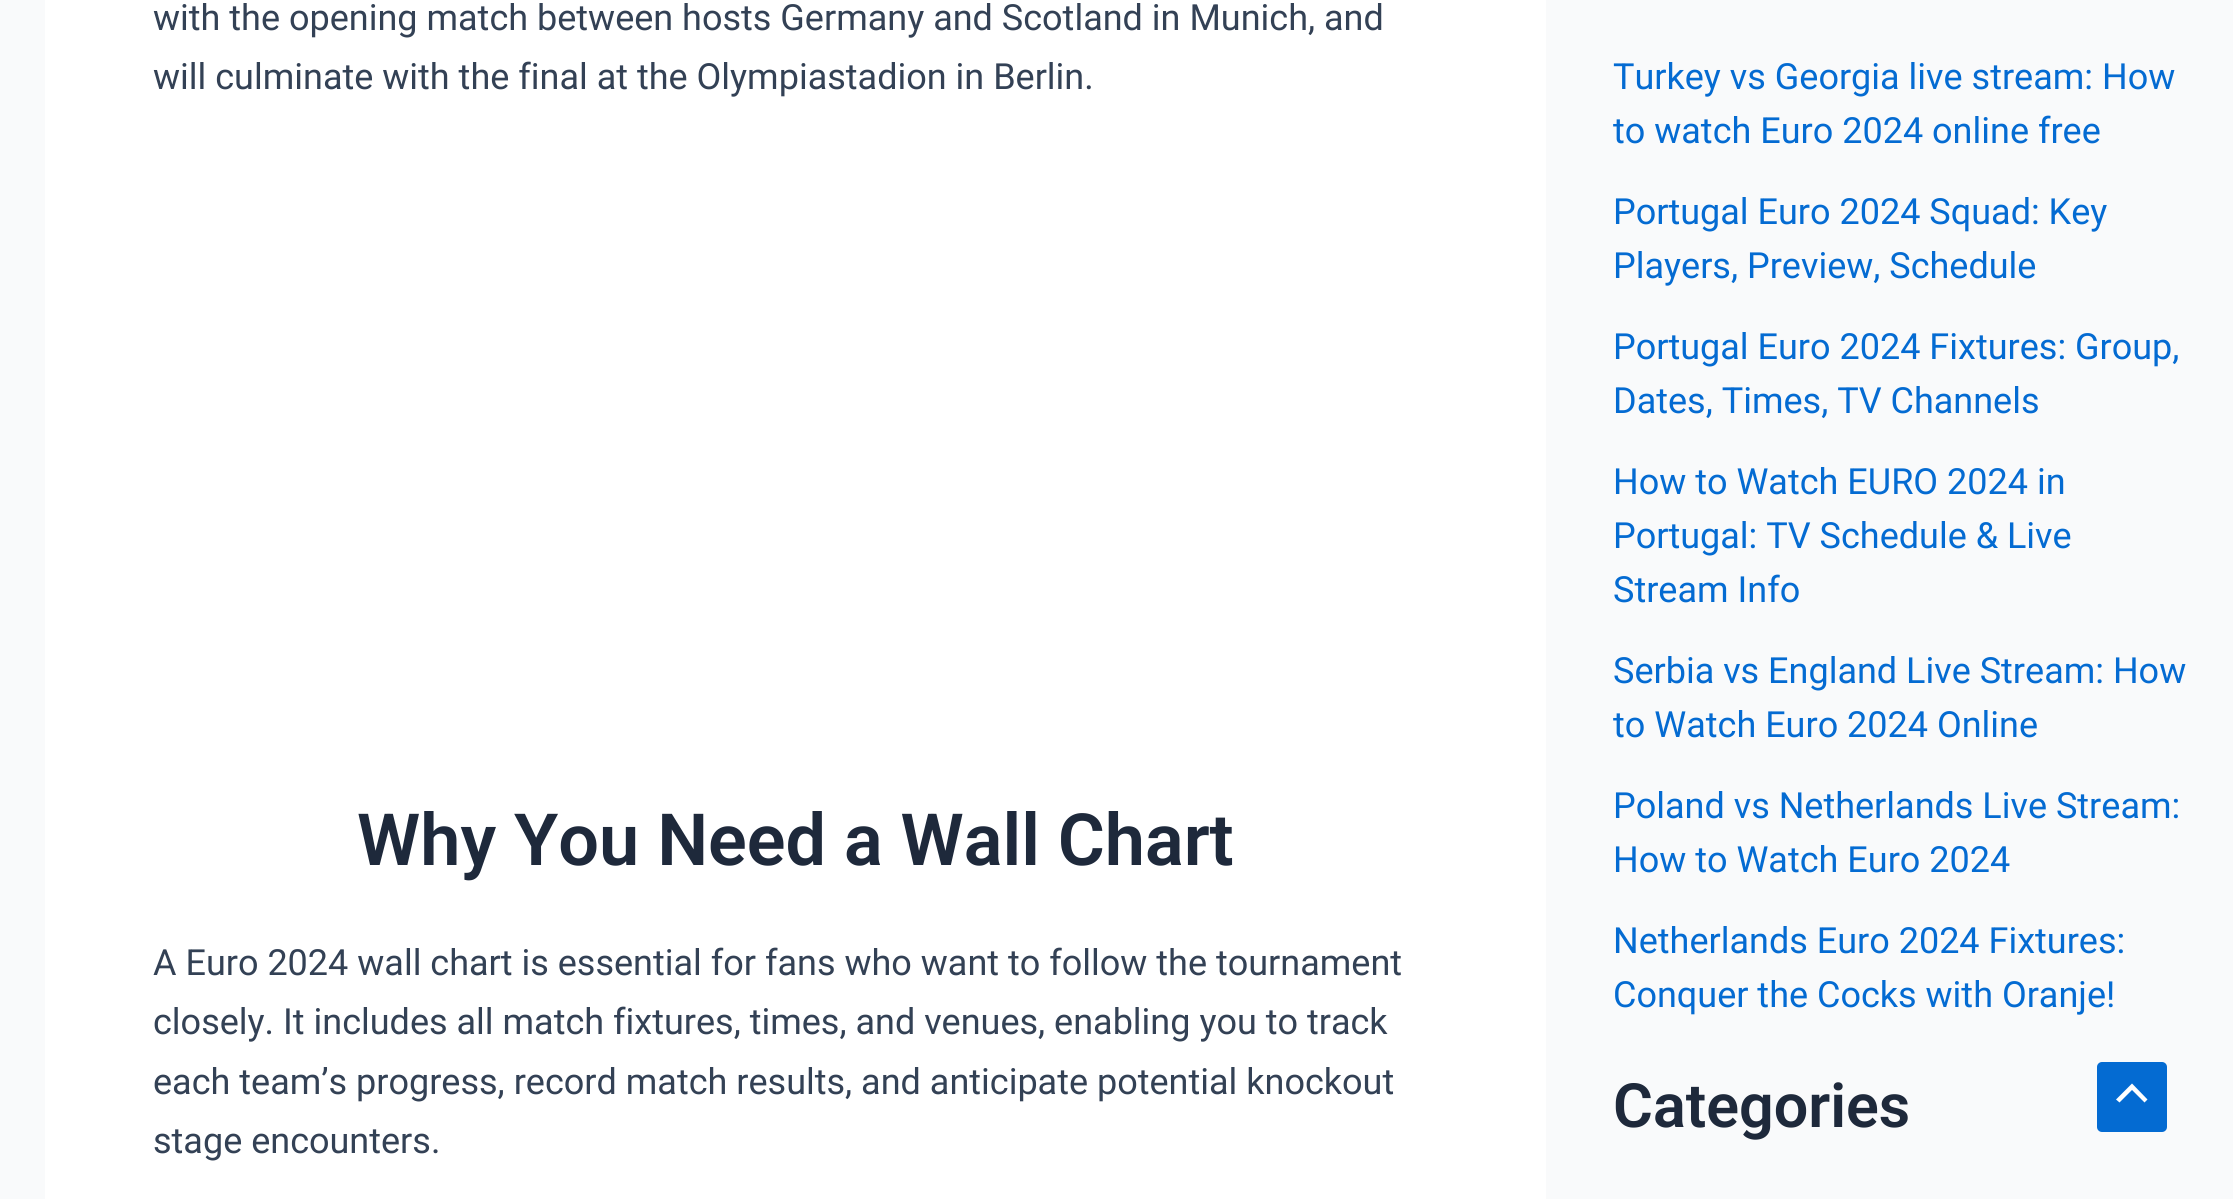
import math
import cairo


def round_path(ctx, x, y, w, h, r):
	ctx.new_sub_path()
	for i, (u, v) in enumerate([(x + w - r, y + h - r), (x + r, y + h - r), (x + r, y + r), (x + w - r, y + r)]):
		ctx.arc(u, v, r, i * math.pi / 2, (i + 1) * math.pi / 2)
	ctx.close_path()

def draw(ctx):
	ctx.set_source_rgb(0.976, 0.98, 0.984)
	ctx.paint()
	ctx.set_source_rgb(1, 1, 1)
	ctx.rectangle(45, 0, 1501, 1199)
	ctx.fill()
	ctx.select_font_face('Roboto')
	ctx.set_font_size(36)
	ctx.set_source_rgb(0.2, 0.255, 0.333)
	ctx.move_to(153, 30)
	ctx.show_text('with the opening match between hosts Germany and Scotland in Munich, and')
	ctx.move_to(153, 89)
	ctx.show_text('will culminate with the final at the Olympiastadion in Berlin.')
	ctx.select_font_face('Roboto SemiBold')
	ctx.set_font_size(72)
	ctx.set_source_rgb(0.118, 0.161, 0.231)
	ctx.move_to(357, 865)
	ctx.show_text('Why You Need a Wall Chart')
	ctx.select_font_face('Roboto')
	ctx.set_font_size(36)
	ctx.set_source_rgb(0.2, 0.255, 0.333)
	for x, y, s in [
		(153, 975, 'A Euro 2024 wall chart is essential for fans who want to follow the tournament'),
		(153, 1034, 'closely. It includes all match fixtures, times, and venues, enabling you to track'),
		(153, 1094, 'each team’s progress, record match results, and anticipate potential knockout'),
		(153, 1153, 'stage encounters.'),
	]:
		ctx.move_to(x, y)
		ctx.show_text(s)
	ctx.set_source_rgb(0.016, 0.42, 0.824)
	for x, y, s in [
		(1613, 89, 'Turkey vs Georgia live stream: How'),
		(1613, 143, 'to watch Euro 2024 online free'),
		(1613, 224, 'Portugal Euro 2024 Squad: Key'),
		(1613, 278, 'Players, Preview, Schedule'),
		(1613, 359, 'Portugal Euro 2024 Fixtures: Group,'),
		(1613, 413, 'Dates, Times, TV Channels'),
		(1613, 494, 'How to Watch EURO 2024 in'),
		(1613, 548, 'Portugal: TV Schedule & Live'),
		(1613, 602, 'Stream Info'),
		(1613, 683, 'Serbia vs England Live Stream: How'),
		(1613, 737, 'to Watch Euro 2024 Online'),
		(1613, 818, 'Poland vs Netherlands Live Stream:'),
		(1613, 872, 'How to Watch Euro 2024'),
		(1613, 953, 'Netherlands Euro 2024 Fixtures:'),
		(1613, 1007, 'Conquer the Cocks with Oranje!'),
	]:
		ctx.move_to(x, y)
		ctx.show_text(s)
	ctx.select_font_face('Roboto SemiBold')
	ctx.set_font_size(61)
	ctx.set_source_rgb(0.118, 0.161, 0.231)
	ctx.move_to(1613, 1127)
	ctx.show_text('Categories')
	ctx.set_source_rgb(0.016, 0.42, 0.824)
	round_path(ctx, 2097, 1062, 70, 70, 5)
	ctx.fill()
	ctx.set_source_rgb(1, 1, 1)
	ctx.new_path()
	ctx.move_to(2147.5, 1099.5)
	ctx.line_to(2132, 1083.5)
	ctx.line_to(2116, 1099.5)
	ctx.line_to(2119.5, 1102.5)
	ctx.line_to(2132, 1090)
	ctx.line_to(2144.5, 1102.5)
	ctx.close_path()
	ctx.fill()


surface = cairo.ImageSurface(cairo.FORMAT_RGB24, 2233, 1199)
ctx = cairo.Context(surface)
options = cairo.FontOptions()
options.set_hint_metrics(cairo.HINT_METRICS_OFF)
options.set_hint_style(cairo.HINT_STYLE_NONE)
ctx.set_font_options(options)
ctx.set_miter_limit(4)
draw(ctx)
surface.write_to_png('image.png')
